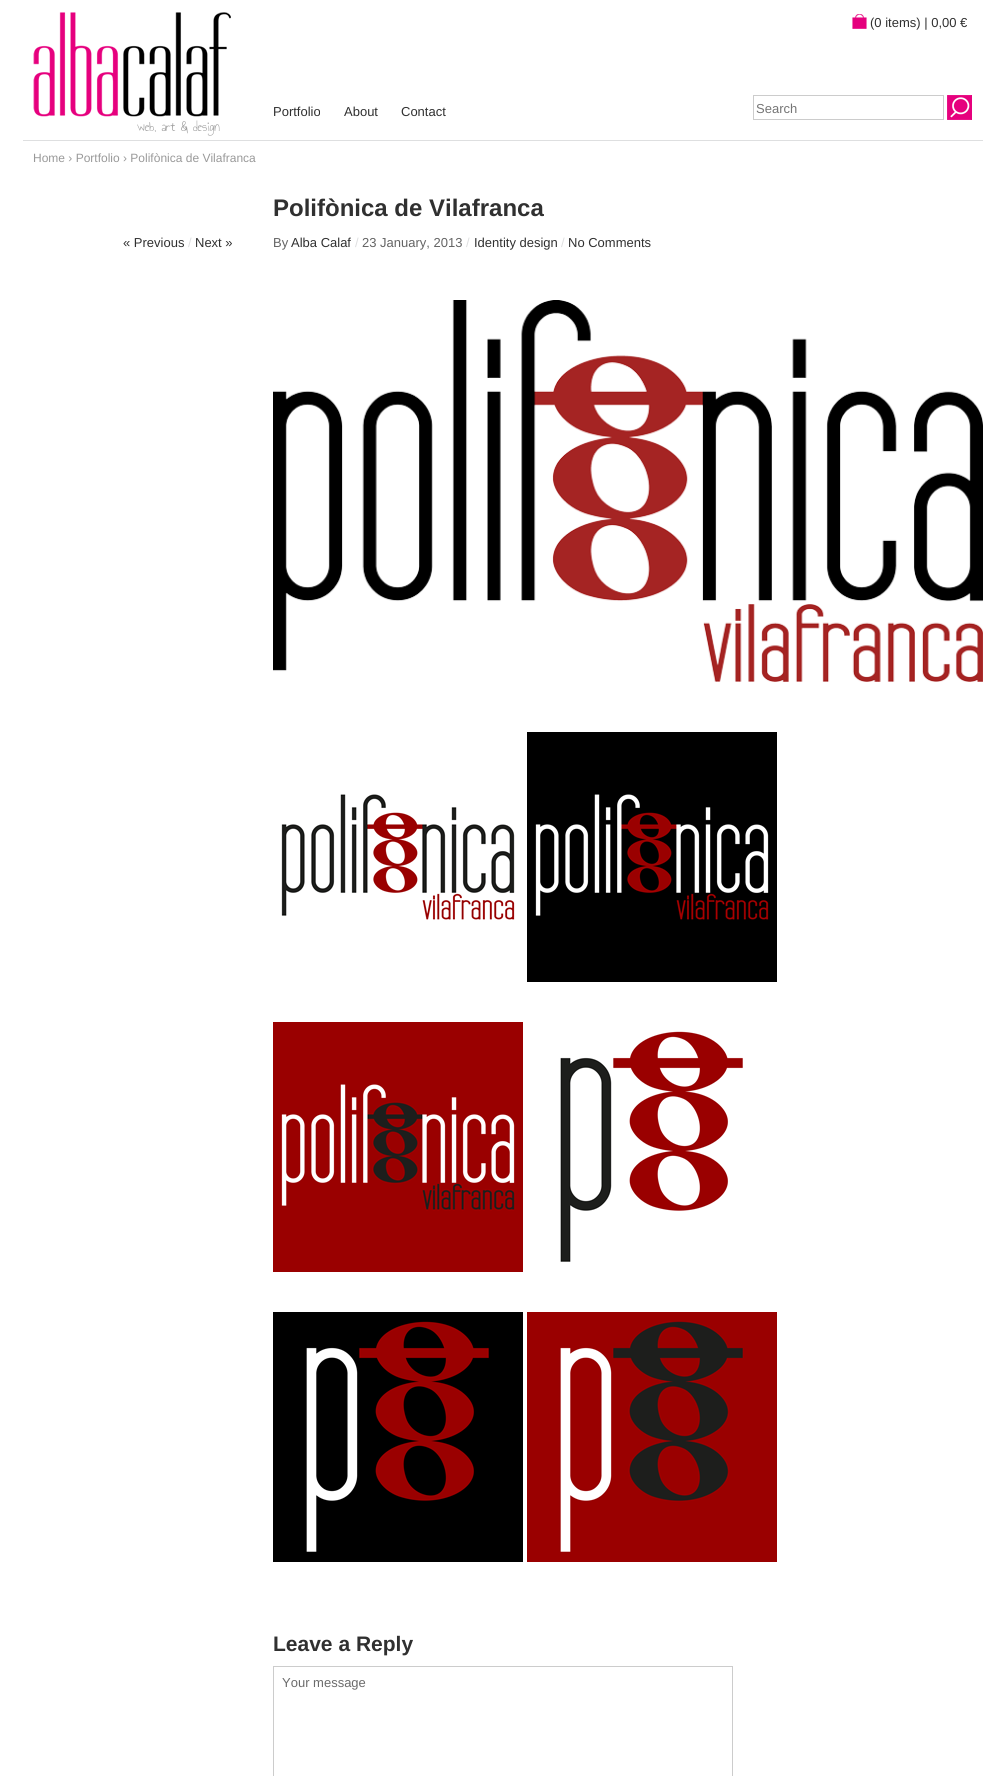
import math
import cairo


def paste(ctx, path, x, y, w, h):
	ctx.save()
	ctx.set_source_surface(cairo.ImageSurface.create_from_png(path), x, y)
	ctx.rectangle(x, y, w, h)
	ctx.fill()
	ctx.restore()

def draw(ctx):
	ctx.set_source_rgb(1, 1, 1)
	ctx.paint()
	ctx.set_source_rgb(0.871, 0.875, 0.878)
	ctx.rectangle(23, 140, 960, 1)
	ctx.fill()
	ctx.select_font_face('Liberation Sans')
	ctx.set_font_size(13)
	ctx.set_source_rgb(0.188, 0.188, 0.188)
	for x, y, s in [
		(273, 116, 'Portfolio'),
		(344, 116, 'About'),
		(401, 116, 'Contact'),
	]:
		ctx.move_to(x, y)
		ctx.show_text(s)
	paste(ctx, 'media/1.png', 852, 14, 15, 15)
	ctx.move_to(870, 27)
	ctx.show_text('(0 items) | 0,00 €')
	ctx.rectangle(753.5, 95.5, 190, 24)
	ctx.set_source_rgb(0.8, 0.8, 0.8)
	ctx.set_line_width(1)
	ctx.stroke()
	ctx.set_source_rgb(0.459, 0.459, 0.459)
	ctx.move_to(756, 113)
	ctx.show_text('Search')
	paste(ctx, 'media/2.png', 947, 95, 25, 25)
	paste(ctx, 'media/3.png', 33, 12, 198, 105)
	ctx.select_font_face('Annie Use Your Telescope')
	ctx.set_font_size(14)
	ctx.set_source_rgb(0.6, 0.6, 0.6)
	ctx.move_to(137, 131)
	ctx.show_text('web, art & design')
	ctx.select_font_face('Liberation Sans')
	ctx.set_font_size(12)
	ctx.move_to(33, 162)
	ctx.show_text('Home › Portfolio › Polifònica de Vilafranca')
	ctx.select_font_face('Liberation Sans', cairo.FONT_SLANT_NORMAL, cairo.FONT_WEIGHT_BOLD)
	ctx.set_font_size(24)
	ctx.set_source_rgb(0.188, 0.188, 0.188)
	ctx.move_to(273, 216)
	ctx.show_text('Polifònica de Vilafranca')
	ctx.select_font_face('Liberation Sans')
	ctx.set_font_size(13)
	ctx.move_to(123, 247)
	ctx.show_text('« Previous')
	ctx.set_source_rgb(0.871, 0.875, 0.878)
	ctx.move_to(188, 247)
	ctx.show_text('/')
	ctx.set_source_rgb(0.188, 0.188, 0.188)
	ctx.move_to(195, 247)
	ctx.show_text('Next »')
	ctx.set_source_rgb(0.388, 0.388, 0.388)
	ctx.move_to(273, 247)
	ctx.show_text('By')
	ctx.set_source_rgb(0.188, 0.188, 0.188)
	ctx.move_to(291, 247)
	ctx.show_text('Alba Calaf')
	ctx.set_source_rgb(0.871, 0.875, 0.878)
	ctx.move_to(355, 247)
	ctx.show_text('/')
	ctx.set_source_rgb(0.388, 0.388, 0.388)
	ctx.move_to(362, 247)
	ctx.show_text('23 January, 2013')
	ctx.set_source_rgb(0.871, 0.875, 0.878)
	ctx.move_to(466, 247)
	ctx.show_text('/')
	ctx.set_source_rgb(0.188, 0.188, 0.188)
	ctx.move_to(474, 247)
	ctx.show_text('Identity design')
	ctx.set_source_rgb(0.871, 0.875, 0.878)
	ctx.move_to(561, 247)
	ctx.show_text('/')
	ctx.set_source_rgb(0.188, 0.188, 0.188)
	ctx.move_to(568, 247)
	ctx.show_text('No Comments')
	paste(ctx, 'media/4.png', 273, 300, 710, 382)
	paste(ctx, 'media/5.png', 281, 794, 234, 126)
	paste(ctx, 'media/6.png', 527, 732, 250, 250)
	paste(ctx, 'media/7.png', 273, 1022, 250, 250)
	paste(ctx, 'media/8.png', 560, 1031, 183, 231)
	paste(ctx, 'media/9.png', 273, 1312, 250, 250)
	paste(ctx, 'media/10.png', 527, 1312, 250, 250)
	ctx.select_font_face('Liberation Sans', cairo.FONT_SLANT_NORMAL, cairo.FONT_WEIGHT_BOLD)
	ctx.set_font_size(21)
	ctx.move_to(273, 1651)
	ctx.show_text('Leave a Reply')
	ctx.rectangle(273.5, 1666.5, 459, 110)
	ctx.set_source_rgb(0.8, 0.8, 0.8)
	ctx.stroke()
	ctx.select_font_face('Liberation Sans')
	ctx.set_font_size(13)
	ctx.set_source_rgb(0.42, 0.42, 0.42)
	ctx.move_to(282, 1687)
	ctx.show_text('Your message')


surface = cairo.ImageSurface(cairo.FORMAT_RGB24, 1005, 1776)
ctx = cairo.Context(surface)
options = cairo.FontOptions()
options.set_hint_metrics(cairo.HINT_METRICS_OFF)
options.set_hint_style(cairo.HINT_STYLE_NONE)
ctx.set_font_options(options)
ctx.set_miter_limit(4)
draw(ctx)
surface.write_to_png('image.png')
